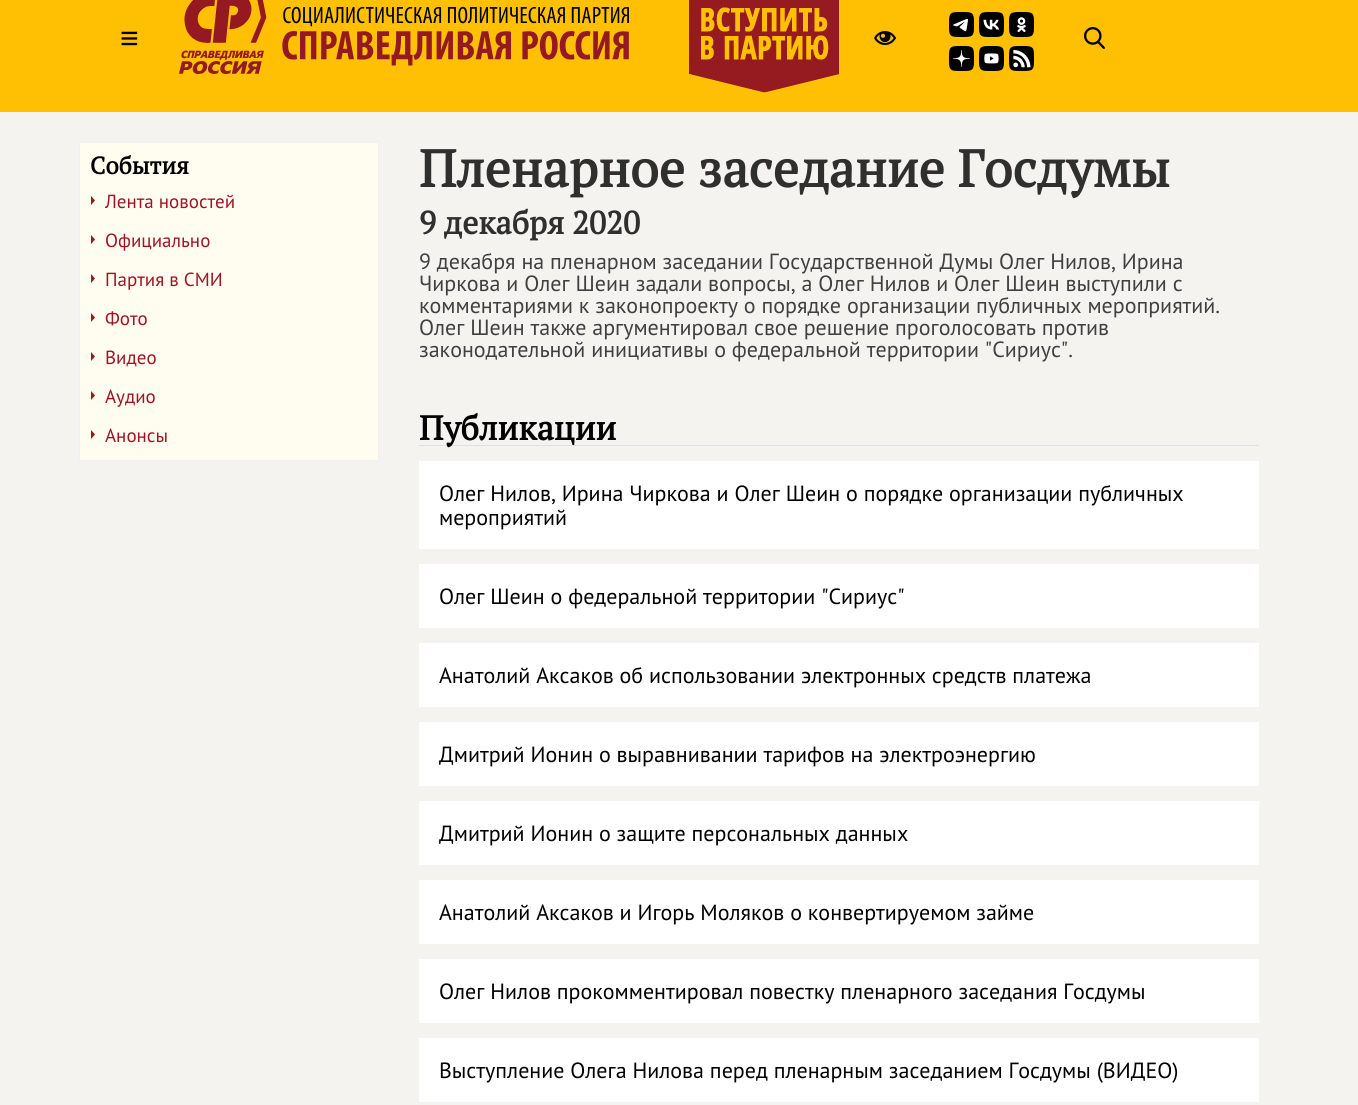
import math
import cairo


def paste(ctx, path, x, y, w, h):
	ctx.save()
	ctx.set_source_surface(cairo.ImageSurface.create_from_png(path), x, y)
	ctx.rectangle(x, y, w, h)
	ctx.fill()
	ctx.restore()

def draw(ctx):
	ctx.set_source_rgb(0.957, 0.953, 0.937)
	ctx.paint()
	ctx.set_source_rgb(1, 0.753, 0.012)
	ctx.rectangle(0, 0, 1358, 112)
	ctx.fill()
	ctx.select_font_face('Liberation Sans')
	ctx.set_font_size(32)
	ctx.set_source_rgb(0, 0, 0)
	ctx.move_to(120, 49)
	ctx.show_text('≡')
	paste(ctx, 'media/1.png', 179, 0, 450, 74)
	paste(ctx, 'media/2.png', 689, 0, 150, 93)
	paste(ctx, 'media/3.png', 874, 31, 22, 14)
	paste(ctx, 'media/4.png', 949, 12, 25, 25)
	paste(ctx, 'media/5.png', 979, 12, 25, 25)
	paste(ctx, 'media/6.png', 1009, 12, 25, 25)
	paste(ctx, 'media/7.png', 949, 46, 25, 25)
	paste(ctx, 'media/8.png', 979, 46, 25, 25)
	paste(ctx, 'media/9.png', 1009, 46, 25, 25)
	paste(ctx, 'media/10.png', 1084, 27, 21, 22)
	ctx.set_source_rgb(0.996, 0.992, 0.941)
	ctx.rectangle(79.5, 142.5, 299, 318)
	ctx.fill_preserve()
	ctx.set_source_rgb(0.941, 0.941, 0.941)
	ctx.set_line_width(1)
	ctx.stroke()
	ctx.select_font_face('PT Serif', cairo.FONT_SLANT_NORMAL, cairo.FONT_WEIGHT_BOLD)
	ctx.set_font_size(24)
	ctx.set_source_rgb(0, 0, 0)
	ctx.move_to(90, 174)
	ctx.show_text('События')
	paste(ctx, 'media/11.png', 91, 196, 4, 9)
	ctx.select_font_face('PT Sans')
	ctx.set_font_size(19)
	ctx.set_source_rgb(0.62, 0.082, 0.153)
	ctx.move_to(105, 208)
	ctx.show_text('Лента новостей')
	paste(ctx, 'media/11.png', 91, 235, 4, 9)
	ctx.move_to(105, 247)
	ctx.show_text('Официально')
	paste(ctx, 'media/11.png', 91, 274, 4, 9)
	ctx.move_to(105, 286)
	ctx.show_text('Партия в СМИ')
	paste(ctx, 'media/11.png', 91, 313, 4, 9)
	ctx.move_to(105, 325)
	ctx.show_text('Фото')
	paste(ctx, 'media/11.png', 91, 352, 4, 9)
	ctx.move_to(105, 364)
	ctx.show_text('Видео')
	paste(ctx, 'media/11.png', 91, 391, 4, 9)
	ctx.move_to(105, 403)
	ctx.show_text('Аудио')
	paste(ctx, 'media/11.png', 91, 430, 4, 9)
	ctx.move_to(105, 442)
	ctx.show_text('Анонсы')
	ctx.select_font_face('PT Serif', cairo.FONT_SLANT_NORMAL, cairo.FONT_WEIGHT_BOLD)
	ctx.set_font_size(52)
	ctx.set_source_rgb(0.184, 0.184, 0.176)
	ctx.move_to(419, 187)
	ctx.show_text('Пленарное заседание Госдумы')
	ctx.set_font_size(32)
	ctx.move_to(419, 234)
	ctx.show_text('9 декабря 2020')
	ctx.select_font_face('PT Sans')
	ctx.set_font_size(22)
	ctx.set_source_rgb(0.251, 0.251, 0.251)
	for x, y, s in [
		(419, 269, '9 декабря на пленарном заседании Государственной Думы Олег Нилов, Ирина'),
		(419, 291, 'Чиркова и Олег Шеин задали вопросы, а Олег Нилов и Олег Шеин выступили с'),
		(419, 313, 'комментариями к законопроекту о порядке организации публичных мероприятий.'),
		(419, 335, 'Олег Шеин также аргументировал свое решение проголосовать против'),
		(419, 357, 'законодательной инициативы о федеральной территории "Сириус".'),
	]:
		ctx.move_to(x, y)
		ctx.show_text(s)
	ctx.set_source_rgb(0.878, 0.878, 0.878)
	ctx.rectangle(419, 445, 840, 1)
	ctx.fill()
	ctx.select_font_face('PT Serif', cairo.FONT_SLANT_NORMAL, cairo.FONT_WEIGHT_BOLD)
	ctx.set_font_size(34)
	ctx.set_source_rgb(0, 0, 0)
	ctx.move_to(419, 440)
	ctx.show_text('Публикации')
	ctx.set_source_rgb(1, 1, 1)
	ctx.rectangle(419, 461, 840, 88)
	ctx.fill()
	ctx.select_font_face('PT Sans')
	ctx.set_font_size(22)
	ctx.set_source_rgb(0, 0, 0)
	ctx.move_to(439, 501)
	ctx.show_text('Олег Нилов, Ирина Чиркова и Олег Шеин о порядке организации публичных')
	ctx.move_to(439, 525)
	ctx.show_text('мероприятий')
	ctx.set_source_rgb(1, 1, 1)
	ctx.rectangle(419, 564, 840, 64)
	ctx.fill()
	ctx.set_source_rgb(0, 0, 0)
	ctx.move_to(439, 604)
	ctx.show_text('Олег Шеин о федеральной территории "Сириус"')
	ctx.set_source_rgb(1, 1, 1)
	ctx.rectangle(419, 643, 840, 64)
	ctx.fill()
	ctx.set_source_rgb(0, 0, 0)
	ctx.move_to(439, 683)
	ctx.show_text('Анатолий Аксаков об использовании электронных средств платежа')
	ctx.set_source_rgb(1, 1, 1)
	ctx.rectangle(419, 722, 840, 64)
	ctx.fill()
	ctx.set_source_rgb(0, 0, 0)
	ctx.move_to(439, 762)
	ctx.show_text('Дмитрий Ионин о выравнивании тарифов на электроэнергию')
	ctx.set_source_rgb(1, 1, 1)
	ctx.rectangle(419, 801, 840, 64)
	ctx.fill()
	ctx.set_source_rgb(0, 0, 0)
	ctx.move_to(439, 841)
	ctx.show_text('Дмитрий Ионин о защите персональных данных')
	ctx.set_source_rgb(1, 1, 1)
	ctx.rectangle(419, 880, 840, 64)
	ctx.fill()
	ctx.set_source_rgb(0, 0, 0)
	ctx.move_to(439, 920)
	ctx.show_text('Анатолий Аксаков и Игорь Моляков о конвертируемом займе')
	ctx.set_source_rgb(1, 1, 1)
	ctx.rectangle(419, 959, 840, 64)
	ctx.fill()
	ctx.set_source_rgb(0, 0, 0)
	ctx.move_to(439, 999)
	ctx.show_text('Олег Нилов прокомментировал повестку пленарного заседания Госдумы')
	ctx.set_source_rgb(1, 1, 1)
	ctx.rectangle(419, 1038, 840, 64)
	ctx.fill()
	ctx.set_source_rgb(0, 0, 0)
	ctx.move_to(439, 1078)
	ctx.show_text('Выступление Олега Нилова перед пленарным заседанием Госдумы (ВИДЕО)')


surface = cairo.ImageSurface(cairo.FORMAT_RGB24, 1358, 1105)
ctx = cairo.Context(surface)
options = cairo.FontOptions()
options.set_hint_metrics(cairo.HINT_METRICS_OFF)
options.set_hint_style(cairo.HINT_STYLE_NONE)
ctx.set_font_options(options)
ctx.set_miter_limit(4)
draw(ctx)
surface.write_to_png('image.png')
